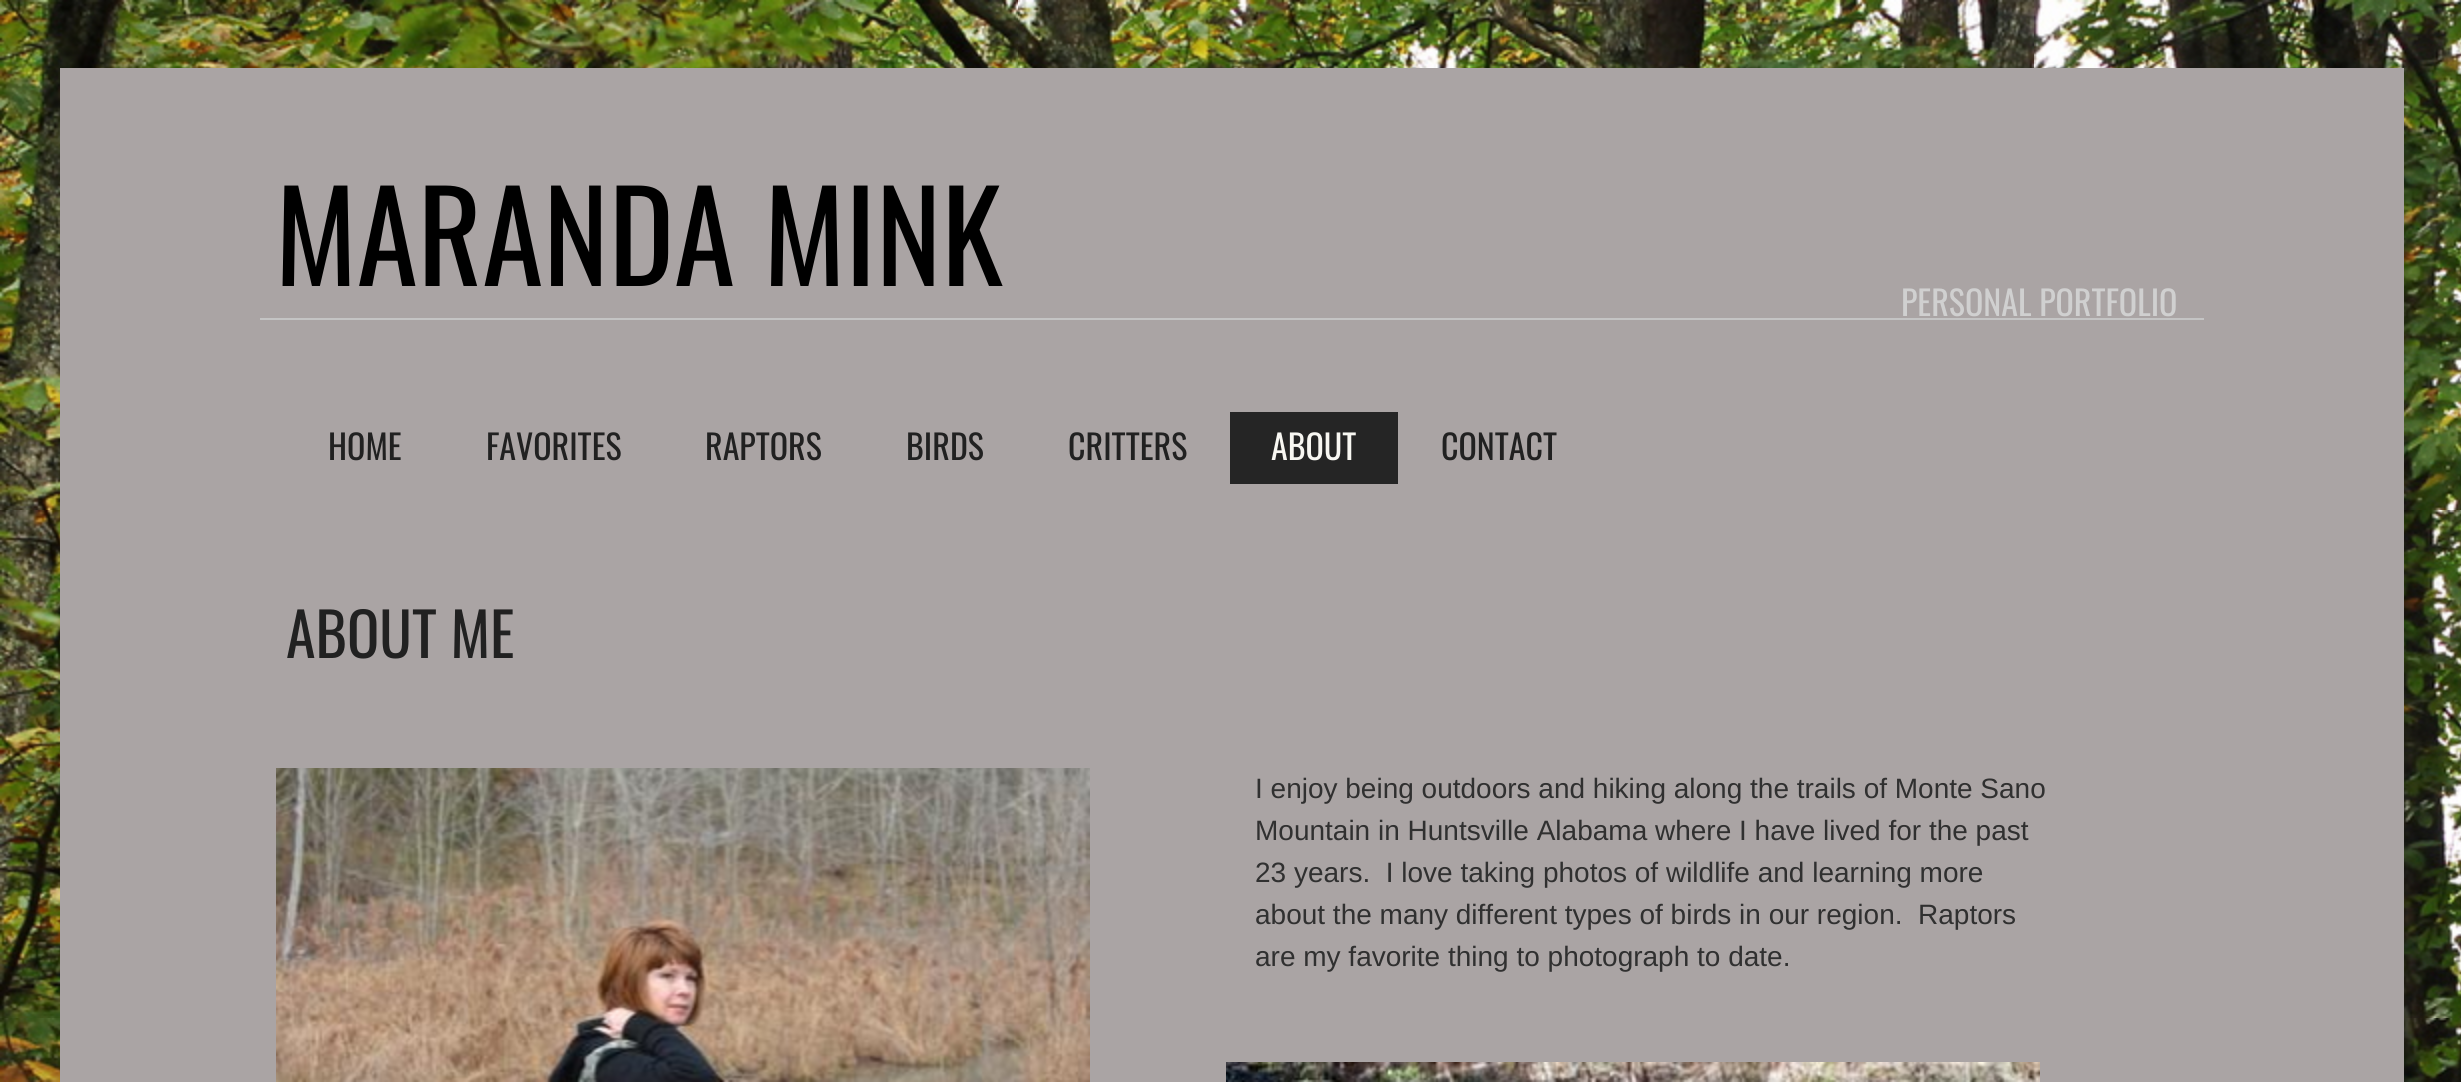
import math
import cairo


def paste(ctx, path, x, y, w, h):
	ctx.save()
	ctx.set_source_surface(cairo.ImageSurface.create_from_png(path), x, y)
	ctx.rectangle(x, y, w, h)
	ctx.fill()
	ctx.restore()

def draw(ctx):
	ctx.set_source_rgb(1, 1, 1)
	ctx.paint()
	paste(ctx, 'media/1.png', 0, 0, 2461, 1082)
	ctx.set_source_rgb(0.667, 0.643, 0.643)
	ctx.rectangle(60, 68, 2344, 1014)
	ctx.fill()
	ctx.select_font_face('Oswald')
	ctx.set_font_size(124)
	ctx.set_source_rgb(0, 0, 0)
	ctx.move_to(275, 286)
	ctx.show_text('MARANDA MINK')
	ctx.set_font_size(34)
	ctx.set_source_rgb(0.816, 0.816, 0.816)
	ctx.move_to(1901, 316)
	ctx.show_text('PERSONAL PORTFOLIO')
	ctx.set_source_rgb(0.769, 0.769, 0.769)
	ctx.rectangle(260, 318, 1944, 2)
	ctx.fill()
	ctx.set_source_rgb(0.129, 0.129, 0.129)
	for x, y, s in [
		(328, 460, 'HOME'),
		(486, 460, 'FAVORITES'),
		(705, 460, 'RAPTORS'),
		(906, 460, 'BIRDS'),
		(1068, 460, 'CRITTERS'),
	]:
		ctx.move_to(x, y)
		ctx.show_text(s)
	ctx.set_source_rgb(0.145, 0.145, 0.145)
	ctx.rectangle(1230, 412, 168, 72)
	ctx.fill()
	ctx.set_source_rgb(0.969, 0.965, 0.949)
	ctx.move_to(1271, 460)
	ctx.show_text('ABOUT')
	ctx.set_source_rgb(0.129, 0.129, 0.129)
	ctx.move_to(1441, 460)
	ctx.show_text('CONTACT')
	ctx.set_font_size(60)
	ctx.move_to(286, 658)
	ctx.show_text('ABOUT ME')
	paste(ctx, 'media/2.png', 276, 768, 814, 314)
	ctx.select_font_face('Liberation Sans')
	ctx.set_font_size(28)
	ctx.set_source_rgb(0.188, 0.188, 0.188)
	for x, y, s in [
		(1255, 798, 'I enjoy being outdoors and hiking along the trails of Monte Sano'),
		(1255, 840, 'Mountain in Huntsville Alabama where I have lived for the past'),
		(1255, 882, '23 years.  I love taking photos of wildlife and learning more'),
		(1255, 924, 'about the many different types of birds in our region.  Raptors'),
		(1255, 966, 'are my favorite thing to photograph to date.'),
	]:
		ctx.move_to(x, y)
		ctx.show_text(s)
	paste(ctx, 'media/3.png', 1226, 1062, 814, 20)


surface = cairo.ImageSurface(cairo.FORMAT_RGB24, 2461, 1082)
ctx = cairo.Context(surface)
options = cairo.FontOptions()
options.set_hint_metrics(cairo.HINT_METRICS_OFF)
options.set_hint_style(cairo.HINT_STYLE_NONE)
ctx.set_font_options(options)
ctx.set_miter_limit(4)
draw(ctx)
surface.write_to_png('image.png')
